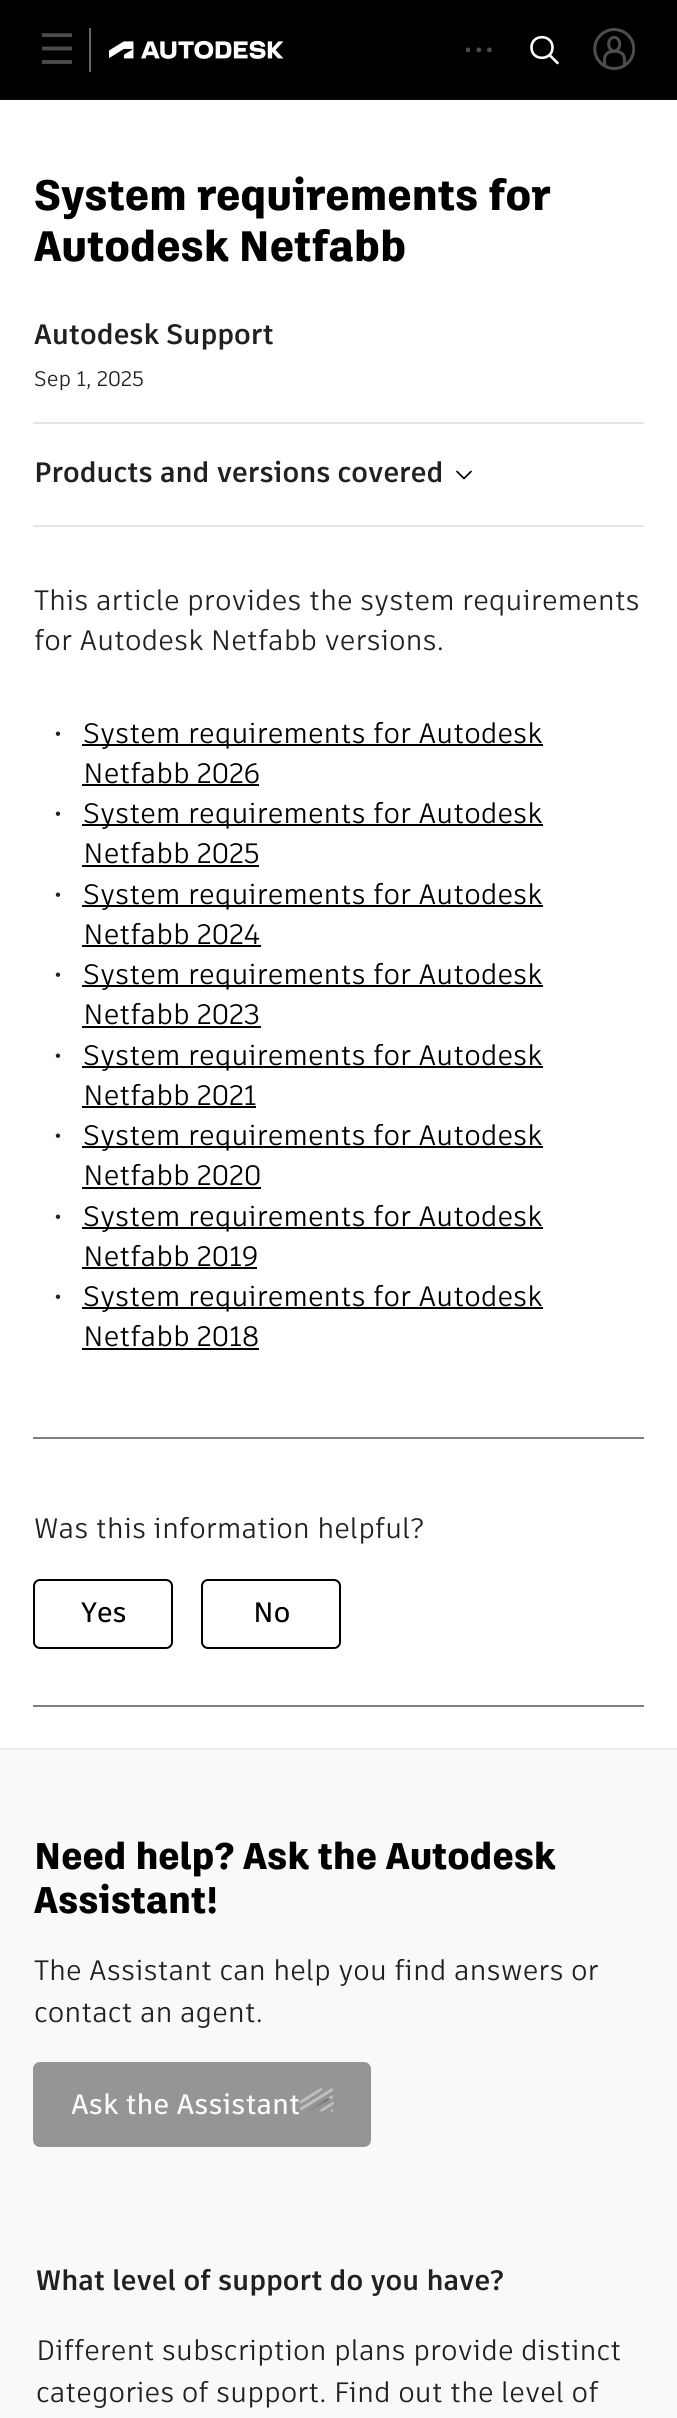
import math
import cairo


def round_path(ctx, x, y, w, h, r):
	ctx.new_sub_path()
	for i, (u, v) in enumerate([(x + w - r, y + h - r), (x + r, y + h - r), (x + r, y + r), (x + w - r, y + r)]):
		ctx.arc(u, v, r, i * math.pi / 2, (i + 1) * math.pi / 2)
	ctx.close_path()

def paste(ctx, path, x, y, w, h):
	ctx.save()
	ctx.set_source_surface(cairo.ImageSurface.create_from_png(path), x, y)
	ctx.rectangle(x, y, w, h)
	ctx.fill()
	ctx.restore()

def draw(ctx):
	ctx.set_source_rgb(1, 1, 1)
	ctx.paint()
	ctx.set_source_rgb(0, 0, 0)
	ctx.rectangle(0, 0, 677, 98)
	ctx.fill()
	ctx.set_source_rgb(0.039, 0.039, 0.039)
	ctx.rectangle(0, 98, 677, 2)
	ctx.fill()
	paste(ctx, 'media/1.png', 42, 33, 30, 31)
	ctx.set_source_rgb(0.4, 0.4, 0.4)
	ctx.rectangle(89, 28, 2, 44)
	ctx.fill()
	paste(ctx, 'media/2.png', 109, 40, 175, 19)
	ctx.save()
	ctx.rectangle(466, 37, 26, 26)
	ctx.clip()
	ctx.set_source_rgb(0.302, 0.302, 0.302)
	ctx.arc(467.9, 49.9, 2.4, 0, 2 * math.pi)
	ctx.fill()
	ctx.restore()
	ctx.set_source_rgb(0.302, 0.302, 0.302)
	ctx.arc(478.8, 49.9, 2.4, 0, 2 * math.pi)
	ctx.fill()
	ctx.arc(489.4, 49.9, 2.4, 0, 2 * math.pi)
	ctx.fill()
	ctx.new_path()
	ctx.move_to(549.5, 55)
	ctx.line_to(557.5, 63)
	ctx.move_to(552.5, 47.5)
	ctx.curve_to(552.5, 61, 531.5, 61.5, 531.5, 47.5)
	ctx.curve_to(531.5, 33.5, 552.5, 34, 552.5, 47.5)
	ctx.close_path()
	ctx.set_source_rgb(1, 1, 1)
	ctx.set_line_width(2.6)
	ctx.set_line_cap(cairo.LINE_CAP_ROUND)
	ctx.stroke()
	paste(ctx, 'media/3.png', 593, 28, 42, 42)
	ctx.select_font_face('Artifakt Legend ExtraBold')
	ctx.set_font_size(42.4)
	ctx.set_source_rgb(0, 0, 0)
	ctx.move_to(34, 210)
	ctx.show_text('System requirements for')
	ctx.move_to(34, 261)
	ctx.show_text('Autodesk Netfabb')
	ctx.select_font_face('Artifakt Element', cairo.FONT_SLANT_NORMAL, cairo.FONT_WEIGHT_BOLD)
	ctx.set_font_size(28)
	ctx.set_source_rgb(0.129, 0.129, 0.129)
	ctx.move_to(34, 344)
	ctx.show_text('Autodesk Support')
	ctx.select_font_face('Artifakt Element')
	ctx.set_font_size(21)
	ctx.move_to(34, 386)
	ctx.show_text('Sep 1, 2025')
	ctx.set_source_rgb(0.898, 0.898, 0.898)
	ctx.rectangle(33, 422, 611, 2)
	ctx.fill()
	ctx.select_font_face('Artifakt Element', cairo.FONT_SLANT_NORMAL, cairo.FONT_WEIGHT_BOLD)
	ctx.set_font_size(28)
	ctx.set_source_rgb(0.129, 0.129, 0.129)
	ctx.move_to(34, 482)
	ctx.show_text('Products and versions covered')
	ctx.new_path()
	ctx.move_to(471, 471.5)
	ctx.line_to(464, 478.5)
	ctx.line_to(457, 471.5)
	ctx.set_source_rgb(0, 0, 0)
	ctx.set_line_width(1.7)
	ctx.set_line_join(cairo.LINE_JOIN_ROUND)
	ctx.stroke()
	ctx.set_source_rgb(0.898, 0.898, 0.898)
	ctx.rectangle(33, 525, 611, 2)
	ctx.fill()
	ctx.select_font_face('Artifakt Element')
	ctx.set_source_rgb(0.129, 0.129, 0.129)
	ctx.move_to(34, 610)
	ctx.show_text('This article provides the system requirements')
	ctx.move_to(34, 650)
	ctx.show_text('for Autodesk Netfabb versions.')
	ctx.select_font_face('Artifakt Element', cairo.FONT_SLANT_NORMAL, cairo.FONT_WEIGHT_BOLD)
	ctx.move_to(54, 743)
	ctx.show_text('·')
	ctx.set_source_rgb(0, 0, 0)
	ctx.rectangle(82, 744, 461, 2)
	ctx.fill()
	ctx.select_font_face('Artifakt Element')
	ctx.move_to(83, 743)
	ctx.show_text('System requirements for Autodesk')
	ctx.move_to(83, 783)
	ctx.show_text('Netfabb 2026')
	ctx.rectangle(82, 784, 177, 2)
	ctx.fill()
	ctx.select_font_face('Artifakt Element', cairo.FONT_SLANT_NORMAL, cairo.FONT_WEIGHT_BOLD)
	ctx.set_source_rgb(0.129, 0.129, 0.129)
	ctx.move_to(54, 823)
	ctx.show_text('·')
	ctx.set_source_rgb(0, 0, 0)
	ctx.rectangle(82, 824, 461, 2)
	ctx.fill()
	ctx.select_font_face('Artifakt Element')
	ctx.move_to(83, 823)
	ctx.show_text('System requirements for Autodesk')
	ctx.move_to(83, 863)
	ctx.show_text('Netfabb 2025')
	ctx.rectangle(82, 865, 177, 2)
	ctx.fill()
	ctx.select_font_face('Artifakt Element', cairo.FONT_SLANT_NORMAL, cairo.FONT_WEIGHT_BOLD)
	ctx.set_source_rgb(0.129, 0.129, 0.129)
	ctx.move_to(54, 904)
	ctx.show_text('·')
	ctx.set_source_rgb(0, 0, 0)
	ctx.rectangle(82, 905, 461, 2)
	ctx.fill()
	ctx.select_font_face('Artifakt Element')
	ctx.move_to(83, 904)
	ctx.show_text('System requirements for Autodesk')
	ctx.move_to(83, 944)
	ctx.show_text('Netfabb 2024')
	ctx.rectangle(82, 945, 179, 2)
	ctx.fill()
	ctx.select_font_face('Artifakt Element', cairo.FONT_SLANT_NORMAL, cairo.FONT_WEIGHT_BOLD)
	ctx.set_source_rgb(0.129, 0.129, 0.129)
	ctx.move_to(54, 984)
	ctx.show_text('·')
	ctx.set_source_rgb(0, 0, 0)
	ctx.rectangle(82, 985, 461, 2)
	ctx.fill()
	ctx.select_font_face('Artifakt Element')
	ctx.move_to(83, 984)
	ctx.show_text('System requirements for Autodesk')
	ctx.move_to(83, 1024)
	ctx.show_text('Netfabb 2023')
	ctx.rectangle(82, 1026, 179, 2)
	ctx.fill()
	ctx.select_font_face('Artifakt Element', cairo.FONT_SLANT_NORMAL, cairo.FONT_WEIGHT_BOLD)
	ctx.set_source_rgb(0.129, 0.129, 0.129)
	ctx.move_to(54, 1065)
	ctx.show_text('·')
	ctx.set_source_rgb(0, 0, 0)
	ctx.rectangle(82, 1066, 461, 2)
	ctx.fill()
	ctx.select_font_face('Artifakt Element')
	ctx.move_to(83, 1065)
	ctx.show_text('System requirements for Autodesk')
	ctx.move_to(83, 1105)
	ctx.show_text('Netfabb 2021')
	ctx.rectangle(82, 1106, 174, 2)
	ctx.fill()
	ctx.select_font_face('Artifakt Element', cairo.FONT_SLANT_NORMAL, cairo.FONT_WEIGHT_BOLD)
	ctx.set_source_rgb(0.129, 0.129, 0.129)
	ctx.move_to(54, 1145)
	ctx.show_text('·')
	ctx.set_source_rgb(0, 0, 0)
	ctx.rectangle(82, 1146, 461, 2)
	ctx.fill()
	ctx.select_font_face('Artifakt Element')
	ctx.move_to(83, 1145)
	ctx.show_text('System requirements for Autodesk')
	ctx.move_to(83, 1185)
	ctx.show_text('Netfabb 2020')
	ctx.rectangle(82, 1187, 179, 2)
	ctx.fill()
	ctx.select_font_face('Artifakt Element', cairo.FONT_SLANT_NORMAL, cairo.FONT_WEIGHT_BOLD)
	ctx.set_source_rgb(0.129, 0.129, 0.129)
	ctx.move_to(54, 1226)
	ctx.show_text('·')
	ctx.set_source_rgb(0, 0, 0)
	ctx.rectangle(82, 1227, 461, 2)
	ctx.fill()
	ctx.select_font_face('Artifakt Element')
	ctx.move_to(83, 1226)
	ctx.show_text('System requirements for Autodesk')
	ctx.move_to(83, 1266)
	ctx.show_text('Netfabb 2019')
	ctx.rectangle(82, 1267, 175, 2)
	ctx.fill()
	ctx.select_font_face('Artifakt Element', cairo.FONT_SLANT_NORMAL, cairo.FONT_WEIGHT_BOLD)
	ctx.set_source_rgb(0.129, 0.129, 0.129)
	ctx.move_to(54, 1306)
	ctx.show_text('·')
	ctx.set_source_rgb(0, 0, 0)
	ctx.rectangle(82, 1307, 461, 2)
	ctx.fill()
	ctx.select_font_face('Artifakt Element')
	ctx.move_to(83, 1306)
	ctx.show_text('System requirements for Autodesk')
	ctx.move_to(83, 1346)
	ctx.show_text('Netfabb 2018')
	ctx.rectangle(82, 1348, 177, 2)
	ctx.fill()
	ctx.set_source_rgb(0.502, 0.502, 0.502)
	ctx.rectangle(33, 1437, 611, 2)
	ctx.fill()
	ctx.set_source_rgb(0.129, 0.129, 0.129)
	ctx.move_to(34, 1538)
	ctx.show_text('Was this information helpful?')
	round_path(ctx, 34, 1580, 138, 68, 6)
	ctx.set_source_rgb(0, 0, 0)
	ctx.set_line_width(2)
	ctx.set_line_cap(cairo.LINE_CAP_BUTT)
	ctx.set_line_join(cairo.LINE_JOIN_MITER)
	ctx.stroke()
	ctx.select_font_face('Artifakt Element SemiBold')
	ctx.move_to(81, 1622)
	ctx.show_text('Yes')
	round_path(ctx, 202, 1580, 138, 68, 6)
	ctx.stroke()
	ctx.move_to(253, 1622)
	ctx.show_text('No')
	ctx.set_source_rgb(0.502, 0.502, 0.502)
	ctx.rectangle(33, 1705, 611, 2)
	ctx.fill()
	ctx.set_source_rgb(0.922, 0.922, 0.922)
	ctx.rectangle(0, 1748, 677, 2)
	ctx.fill()
	ctx.set_source_rgb(0.976, 0.976, 0.976)
	ctx.rectangle(0, 1750, 677, 668)
	ctx.fill()
	ctx.select_font_face('Artifakt Legend ExtraBold')
	ctx.set_font_size(37)
	ctx.set_source_rgb(0, 0, 0)
	ctx.move_to(34, 1869)
	ctx.show_text('Need help? Ask the Autodesk')
	ctx.move_to(34, 1913)
	ctx.show_text('Assistant!')
	ctx.select_font_face('Artifakt Element')
	ctx.set_font_size(28)
	ctx.set_source_rgb(0.129, 0.129, 0.129)
	ctx.move_to(34, 1980)
	ctx.show_text('The Assistant can help you find answers or')
	ctx.move_to(34, 2022)
	ctx.show_text('contact an agent.')
	ctx.set_source_rgb(0.584, 0.584, 0.584)
	round_path(ctx, 34, 2063, 336, 83, 6)
	ctx.fill_preserve()
	ctx.stroke()
	ctx.select_font_face('Artifakt Element SemiBold')
	ctx.set_source_rgb(0.984, 0.984, 0.984)
	ctx.move_to(71, 2114)
	ctx.show_text('Ask the Assistant')
	paste(ctx, 'media/4.png', 299, 2088, 35, 24)
	ctx.select_font_face('Artifakt Element', cairo.FONT_SLANT_NORMAL, cairo.FONT_WEIGHT_BOLD)
	ctx.set_source_rgb(0.129, 0.129, 0.129)
	ctx.move_to(36, 2290)
	ctx.show_text('What level of support do you have?')
	ctx.select_font_face('Artifakt Element')
	ctx.move_to(36, 2360)
	ctx.show_text('Different subscription plans provide distinct')
	ctx.move_to(36, 2402)
	ctx.show_text('categories of support. Find out the level of')


surface = cairo.ImageSurface(cairo.FORMAT_RGB24, 677, 2418)
ctx = cairo.Context(surface)
options = cairo.FontOptions()
options.set_hint_metrics(cairo.HINT_METRICS_OFF)
options.set_hint_style(cairo.HINT_STYLE_NONE)
ctx.set_font_options(options)
ctx.set_miter_limit(4)
draw(ctx)
surface.write_to_png('image.png')
